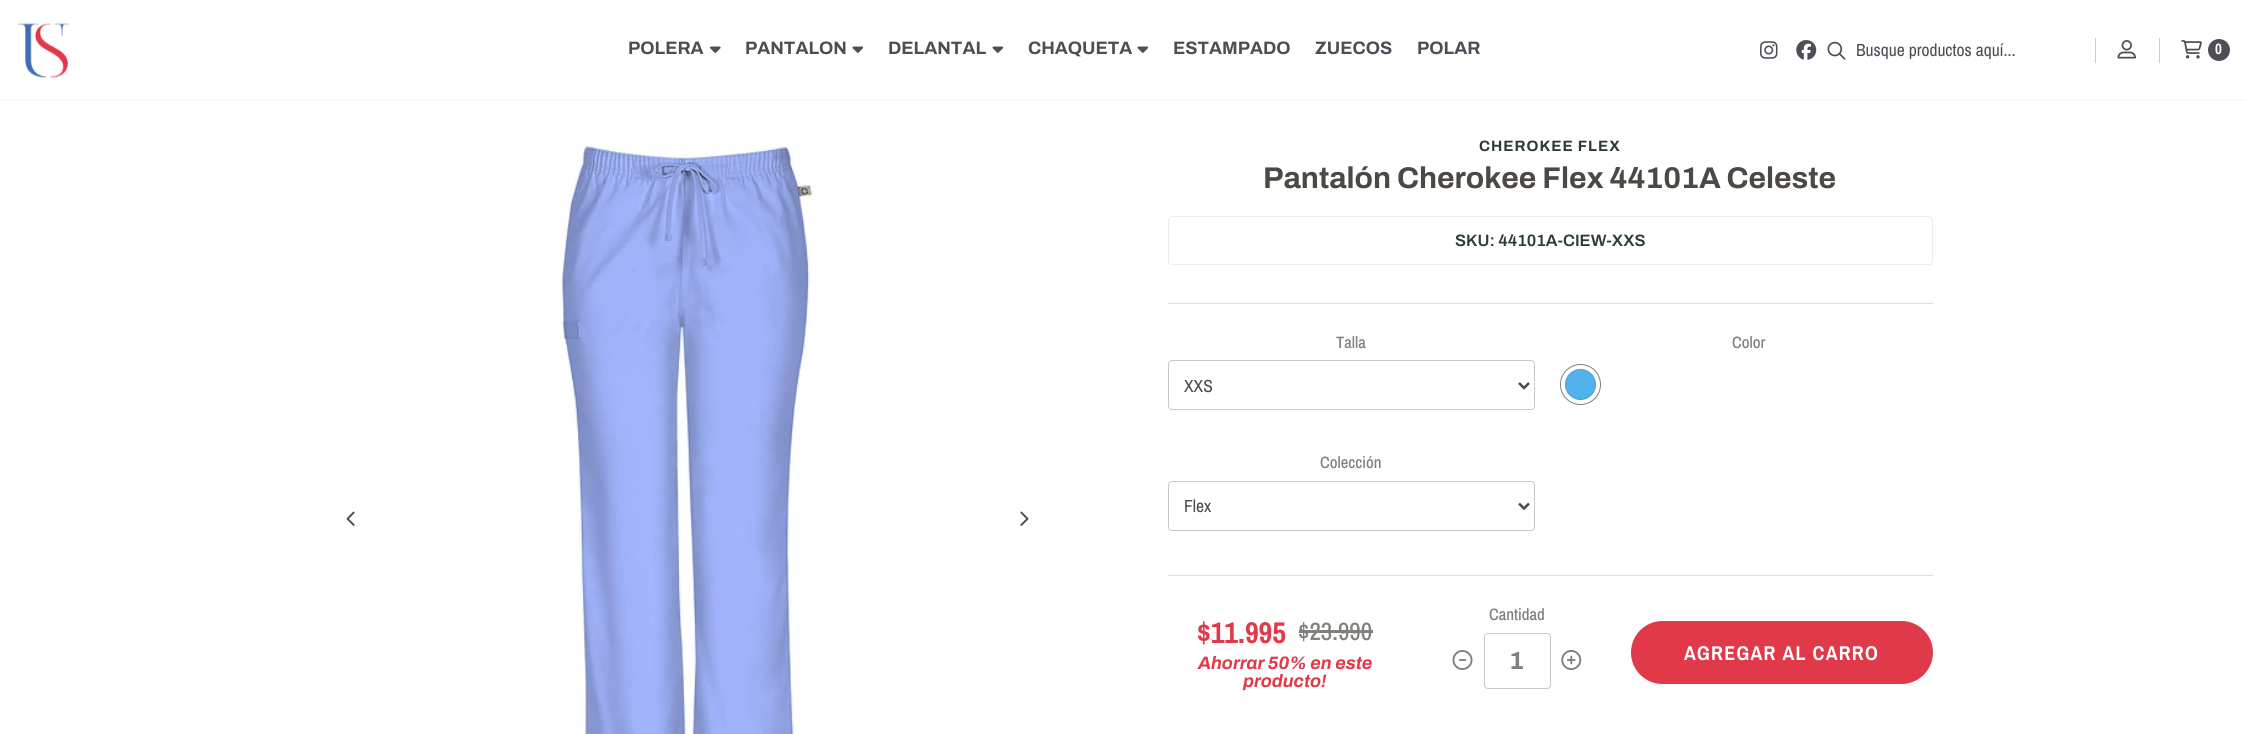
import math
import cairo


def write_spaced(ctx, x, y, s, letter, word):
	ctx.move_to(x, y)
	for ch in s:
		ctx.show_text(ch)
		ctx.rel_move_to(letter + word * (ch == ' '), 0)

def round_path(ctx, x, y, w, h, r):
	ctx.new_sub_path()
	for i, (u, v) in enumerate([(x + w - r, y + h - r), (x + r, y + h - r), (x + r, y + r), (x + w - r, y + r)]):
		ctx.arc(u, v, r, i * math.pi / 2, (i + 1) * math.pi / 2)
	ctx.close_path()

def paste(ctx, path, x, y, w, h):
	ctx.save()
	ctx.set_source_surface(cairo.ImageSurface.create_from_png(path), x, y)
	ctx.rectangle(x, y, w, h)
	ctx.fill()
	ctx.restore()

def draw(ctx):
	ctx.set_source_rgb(1, 1, 1)
	ctx.paint()
	ctx.set_source_rgb(0.965, 0.965, 0.965)
	ctx.rectangle(0, 99, 2245, 1)
	ctx.fill()
	paste(ctx, 'media/1.png', 17, 23, 53, 55)
	ctx.select_font_face('Archivo', cairo.FONT_SLANT_NORMAL, cairo.FONT_WEIGHT_BOLD)
	ctx.set_font_size(18)
	ctx.set_source_rgb(0.302, 0.302, 0.337)
	ctx.move_to(628, 54)
	ctx.show_text('POLERA')
	paste(ctx, 'media/2.png', 710, 46, 11, 7)
	ctx.move_to(745, 54)
	ctx.show_text('PANTALON')
	paste(ctx, 'media/3.png', 852, 46, 12, 7)
	ctx.move_to(888, 54)
	ctx.show_text('DELANTAL')
	paste(ctx, 'media/3.png', 992, 46, 12, 7)
	ctx.move_to(1028, 54)
	ctx.show_text('CHAQUETA')
	paste(ctx, 'media/3.png', 1137, 46, 12, 7)
	for x, y, s in [
		(1173, 54, 'ESTAMPADO'),
		(1315, 54, 'ZUECOS'),
		(1417, 54, 'POLAR'),
	]:
		ctx.move_to(x, y)
		ctx.show_text(s)
	paste(ctx, 'media/4.png', 1760, 41, 18, 18)
	paste(ctx, 'media/5.png', 1796, 40, 21, 20)
	ctx.set_source_rgb(0.8, 0.8, 0.812)
	ctx.rectangle(2095, 38, 1, 25)
	ctx.fill()
	paste(ctx, 'media/6.png', 1827, 41, 19, 19)
	ctx.select_font_face('Archivo Narrow')
	ctx.set_font_size(17.5)
	ctx.set_source_rgb(0.302, 0.302, 0.337)
	ctx.move_to(1856, 56)
	ctx.show_text('Busque productos aquí...')
	ctx.set_source_rgb(0.8, 0.8, 0.812)
	ctx.rectangle(2159, 38, 1, 25)
	ctx.fill()
	paste(ctx, 'media/7.png', 2117, 40, 19, 19)
	paste(ctx, 'media/8.png', 2181, 40, 21, 19)
	ctx.set_source_rgb(0.302, 0.302, 0.337)
	ctx.arc(2219, 50, 11, 0, 2 * math.pi)
	ctx.fill()
	ctx.select_font_face('Archivo Narrow', cairo.FONT_SLANT_NORMAL, cairo.FONT_WEIGHT_BOLD)
	ctx.set_font_size(15)
	ctx.set_source_rgb(1, 1, 1)
	ctx.move_to(2215, 54)
	ctx.show_text('0')
	paste(ctx, 'media/9.png', 346, 511, 9, 15)
	paste(ctx, 'media/10.png', 560, 139, 254, 595)
	paste(ctx, 'media/11.png', 1020, 511, 9, 15)
	ctx.select_font_face('Archivo', cairo.FONT_SLANT_NORMAL, cairo.FONT_WEIGHT_BOLD)
	ctx.set_source_rgb(0.176, 0.227, 0.227)
	write_spaced(ctx, 1479, 151, 'CHEROKEE FLEX', 1, 0)
	ctx.set_font_size(30)
	ctx.set_source_rgb(0.298, 0.286, 0.271)
	ctx.move_to(1263, 188)
	ctx.show_text('Pantalón Cherokee Flex 44101A Celeste')
	round_path(ctx, 1168.5, 216.5, 764, 48, 3.5)
	ctx.set_source_rgb(0.929, 0.929, 0.925)
	ctx.set_line_width(1)
	ctx.stroke()
	ctx.select_font_face('Archivo SemiBold')
	ctx.set_font_size(16.5)
	ctx.set_source_rgb(0.176, 0.227, 0.227)
	ctx.move_to(1455, 246)
	ctx.show_text('SKU: 44101A-CIEW-XXS')
	ctx.set_source_rgb(0.875, 0.878, 0.863)
	ctx.rectangle(1168, 303, 765, 1)
	ctx.fill()
	ctx.select_font_face('Archivo Narrow Medium')
	ctx.set_source_rgb(0.51, 0.502, 0.49)
	ctx.move_to(1336, 348)
	ctx.show_text('Talla')
	round_path(ctx, 1168.5, 360.5, 366, 49, 3.5)
	ctx.set_source_rgb(0.788, 0.784, 0.78)
	ctx.stroke()
	ctx.new_path()
	ctx.move_to(1519, 383)
	ctx.line_to(1524, 388)
	ctx.line_to(1529, 383)
	ctx.set_source_rgb(0.298, 0.286, 0.271)
	ctx.set_line_width(2.5)
	ctx.stroke()
	ctx.select_font_face('Archivo Narrow')
	ctx.set_font_size(17.5)
	ctx.move_to(1184, 392)
	ctx.show_text('XXS')
	ctx.select_font_face('Archivo Narrow Medium')
	ctx.set_font_size(16.5)
	ctx.set_source_rgb(0.51, 0.502, 0.49)
	ctx.move_to(1732, 348)
	ctx.show_text('Color')
	ctx.set_source_rgb(0.318, 0.698, 0.929)
	ctx.new_path()
	ctx.arc(1580.5, 384.5, 15.5, 0, 2 * math.pi)
	ctx.fill()
	ctx.arc(1580.5, 384.5, 15, 0, 2 * math.pi)
	ctx.set_source_rgba(0, 0, 0, 0.1)
	ctx.set_line_width(1)
	ctx.stroke()
	ctx.arc(1580.5, 384.5, 20, 0, 2 * math.pi)
	ctx.set_source_rgb(0.502, 0.502, 0.502)
	ctx.stroke()
	ctx.set_source_rgb(0.51, 0.502, 0.49)
	ctx.move_to(1320, 468)
	ctx.show_text('Colección')
	round_path(ctx, 1168.5, 481.5, 366, 49, 3.5)
	ctx.set_source_rgb(0.788, 0.784, 0.78)
	ctx.stroke()
	ctx.new_path()
	ctx.move_to(1519, 503.5)
	ctx.line_to(1524, 508.5)
	ctx.line_to(1529, 503.5)
	ctx.set_source_rgb(0.298, 0.286, 0.271)
	ctx.set_line_width(2.5)
	ctx.stroke()
	ctx.select_font_face('Archivo Narrow')
	ctx.set_font_size(17.5)
	ctx.move_to(1184, 512)
	ctx.show_text('Flex')
	ctx.set_source_rgb(0.875, 0.878, 0.863)
	ctx.rectangle(1168, 575, 765, 1)
	ctx.fill()
	ctx.select_font_face('Archivo Narrow', cairo.FONT_SLANT_NORMAL, cairo.FONT_WEIGHT_BOLD)
	ctx.set_font_size(30)
	ctx.set_source_rgb(0.878, 0.224, 0.286)
	ctx.move_to(1197, 643)
	ctx.show_text('$11.995')
	ctx.select_font_face('Archivo Narrow Medium')
	ctx.set_font_size(25)
	ctx.set_source_rgb(0.51, 0.502, 0.49)
	ctx.move_to(1298, 640)
	ctx.show_text('$23.990')
	ctx.rectangle(1299, 630, 74, 3)
	ctx.fill()
	ctx.select_font_face('Archivo', cairo.FONT_SLANT_ITALIC, cairo.FONT_WEIGHT_BOLD)
	ctx.set_font_size(18)
	ctx.set_source_rgb(0.878, 0.224, 0.286)
	ctx.move_to(1198, 669)
	ctx.show_text('Ahorrar 50% en este')
	ctx.move_to(1243, 687)
	ctx.show_text('producto!')
	ctx.select_font_face('Archivo Narrow Medium')
	ctx.set_font_size(16.5)
	ctx.set_source_rgb(0.51, 0.502, 0.49)
	ctx.move_to(1489, 620)
	ctx.show_text('Cantidad')
	paste(ctx, 'media/12.png', 1452, 650, 21, 20)
	round_path(ctx, 1484.5, 633.5, 66, 55, 3.5)
	ctx.set_source_rgb(0.788, 0.784, 0.78)
	ctx.set_line_width(1)
	ctx.stroke()
	ctx.select_font_face('Archivo', cairo.FONT_SLANT_NORMAL, cairo.FONT_WEIGHT_BOLD)
	ctx.set_font_size(25)
	ctx.set_source_rgb(0.51, 0.502, 0.49)
	ctx.move_to(1509, 669)
	ctx.show_text('1')
	paste(ctx, 'media/13.png', 1561, 650, 21, 20)
	ctx.set_source_rgb(0.878, 0.224, 0.286)
	round_path(ctx, 1631, 621, 302, 63, 31.5)
	ctx.fill()
	ctx.select_font_face('Archivo Narrow', cairo.FONT_SLANT_NORMAL, cairo.FONT_WEIGHT_BOLD)
	ctx.set_font_size(20)
	ctx.set_source_rgb(1, 1, 1)
	write_spaced(ctx, 1684, 660, 'AGREGAR AL CARRO', 1.25, 0)


surface = cairo.ImageSurface(cairo.FORMAT_RGB24, 2245, 734)
ctx = cairo.Context(surface)
options = cairo.FontOptions()
options.set_hint_metrics(cairo.HINT_METRICS_OFF)
options.set_hint_style(cairo.HINT_STYLE_NONE)
ctx.set_font_options(options)
ctx.set_miter_limit(4)
draw(ctx)
surface.write_to_png('image.png')
